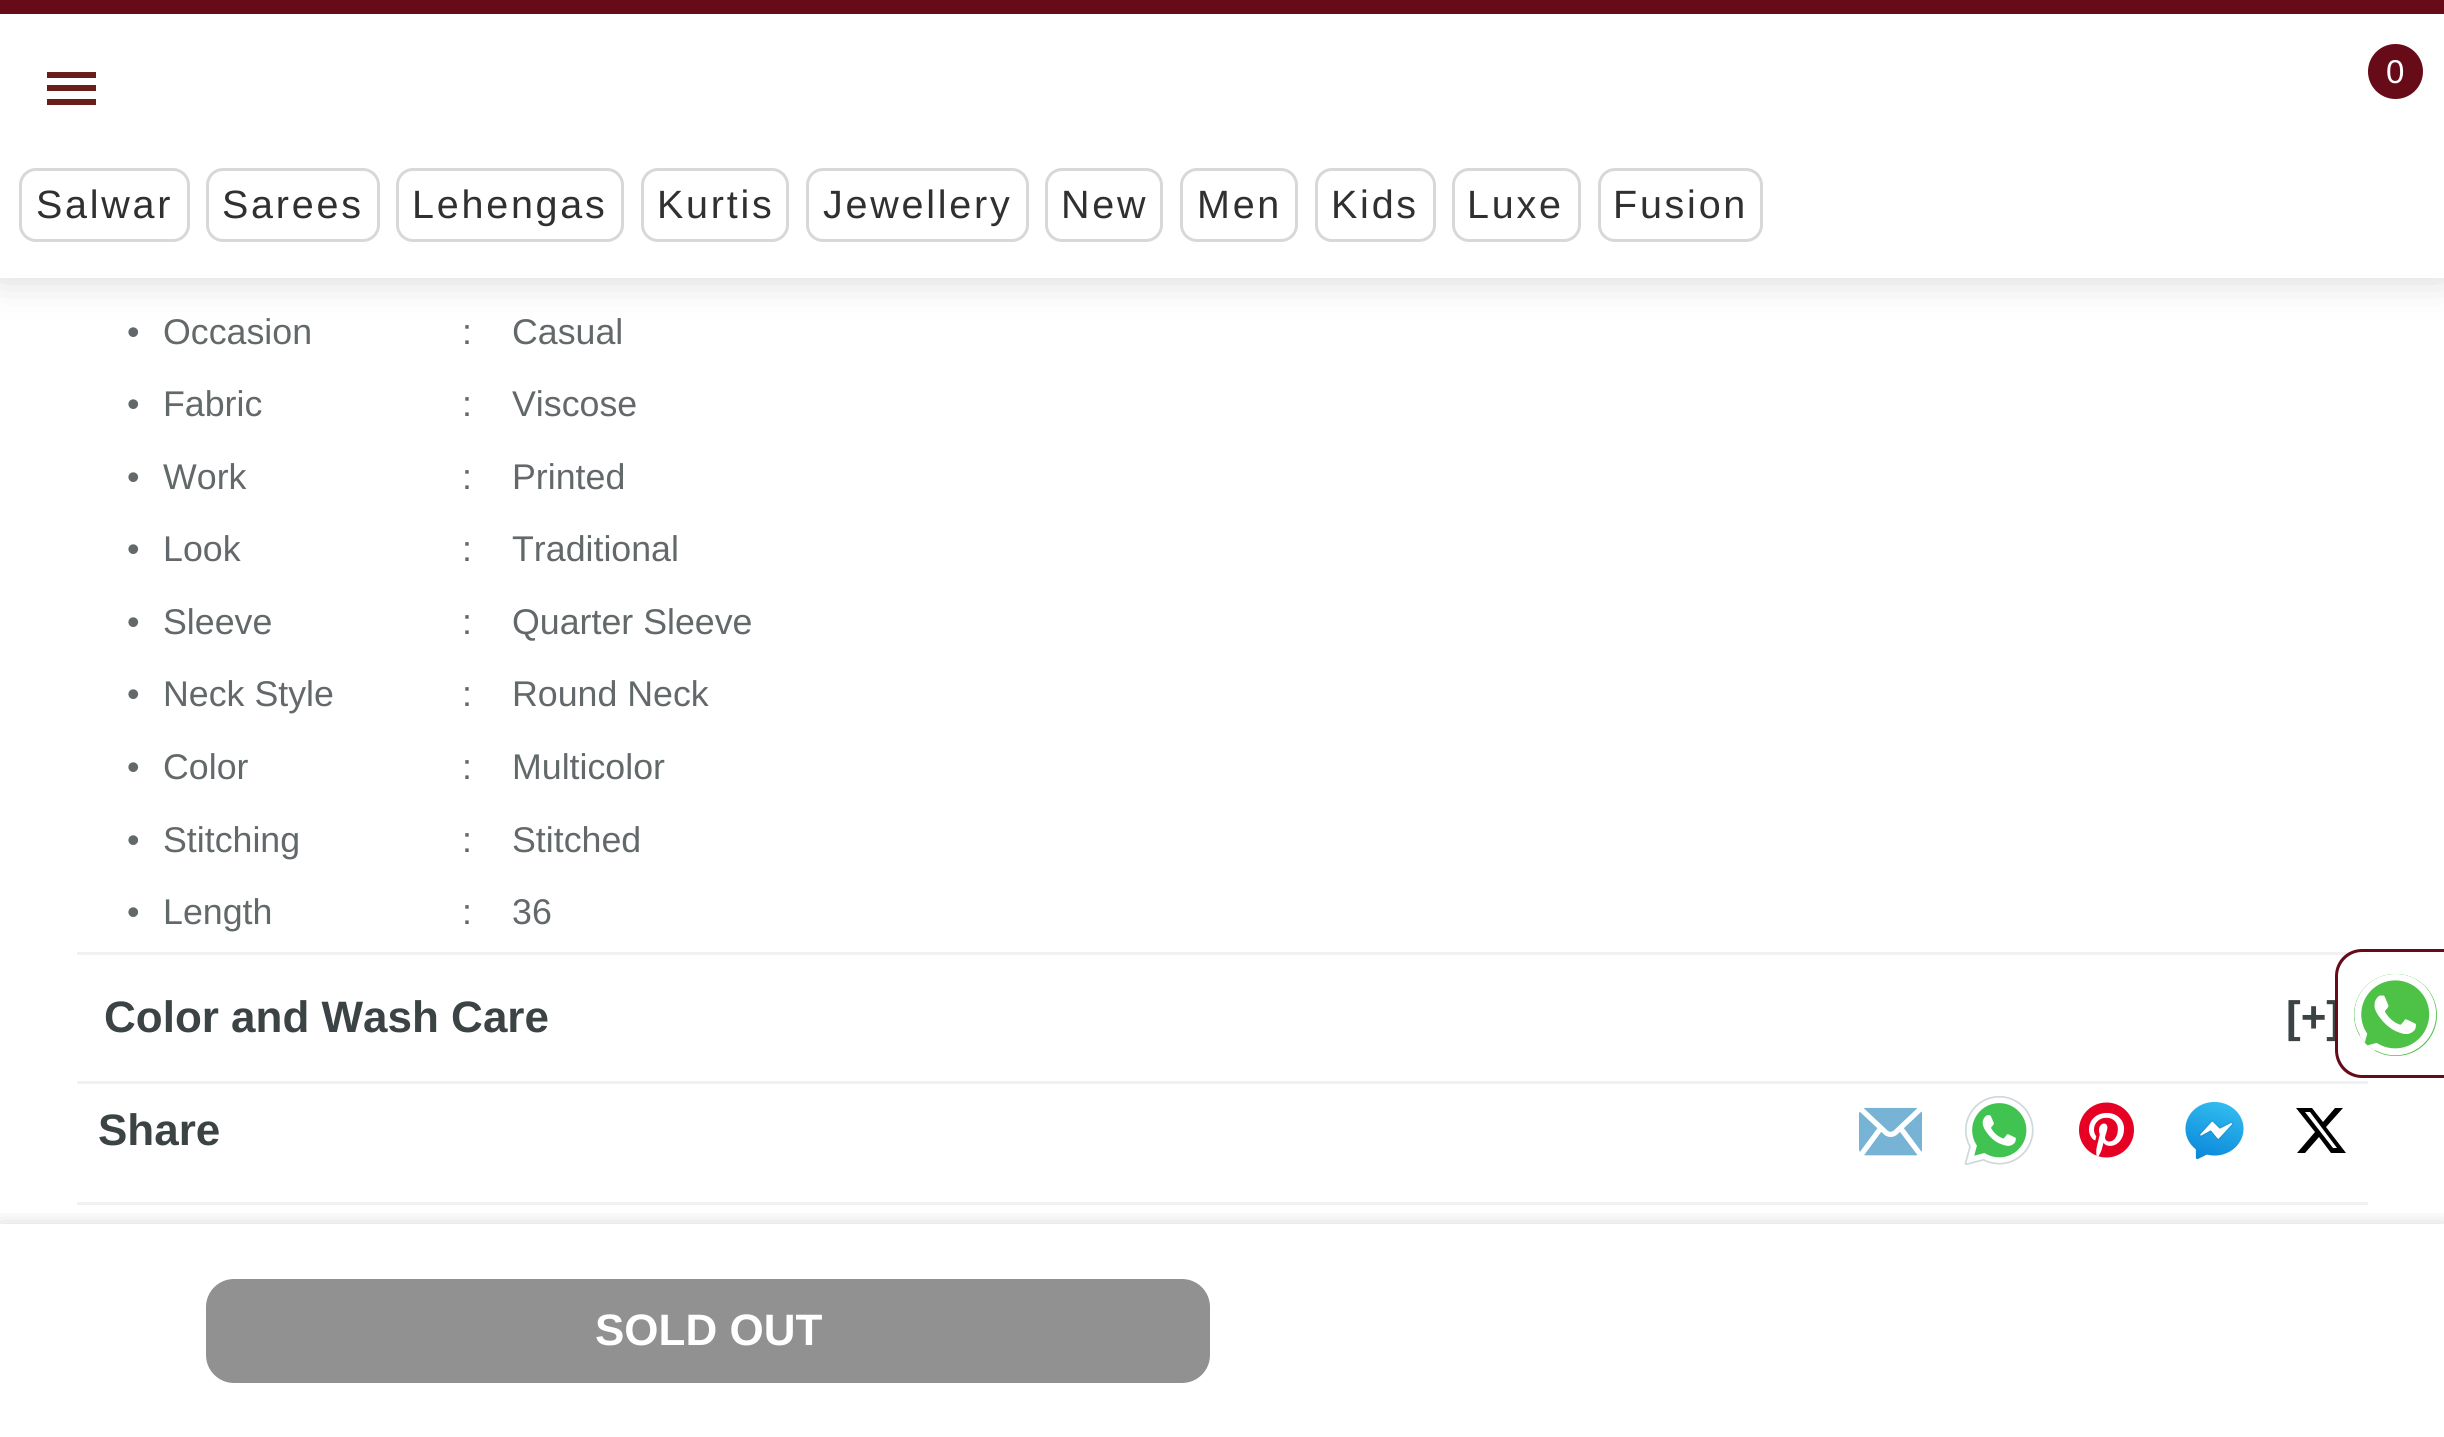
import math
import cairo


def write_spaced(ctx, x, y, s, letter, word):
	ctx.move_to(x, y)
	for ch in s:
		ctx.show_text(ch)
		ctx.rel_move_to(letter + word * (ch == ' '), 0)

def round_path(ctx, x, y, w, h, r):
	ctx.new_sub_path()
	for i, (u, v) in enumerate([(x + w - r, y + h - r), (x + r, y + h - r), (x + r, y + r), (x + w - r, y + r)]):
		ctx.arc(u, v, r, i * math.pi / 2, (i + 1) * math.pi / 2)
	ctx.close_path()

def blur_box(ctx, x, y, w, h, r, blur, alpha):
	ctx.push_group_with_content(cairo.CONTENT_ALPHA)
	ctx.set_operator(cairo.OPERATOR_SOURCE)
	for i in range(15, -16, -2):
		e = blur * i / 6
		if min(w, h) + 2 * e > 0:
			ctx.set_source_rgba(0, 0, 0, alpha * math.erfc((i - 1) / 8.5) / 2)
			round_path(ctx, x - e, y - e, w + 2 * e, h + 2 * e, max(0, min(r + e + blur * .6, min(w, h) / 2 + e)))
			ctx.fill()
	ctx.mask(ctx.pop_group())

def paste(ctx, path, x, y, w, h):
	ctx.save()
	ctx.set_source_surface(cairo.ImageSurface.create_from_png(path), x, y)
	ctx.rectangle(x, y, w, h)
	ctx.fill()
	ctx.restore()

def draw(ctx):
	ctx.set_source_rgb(1, 1, 1)
	ctx.paint()
	ctx.set_source_rgb(0, 0, 0)
	blur_box(ctx, 0, -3, 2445, 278, 0, 20.5, 0.2)
	ctx.set_source_rgb(1, 1, 1)
	ctx.rectangle(0, 14, 2444, 264)
	ctx.fill()
	ctx.set_source_rgb(0.404, 0.043, 0.098)
	ctx.rectangle(0, 0, 2444, 14)
	ctx.fill()
	ctx.set_source_rgb(0.408, 0.118, 0.098)
	ctx.rectangle(47, 99, 49, 6)
	ctx.rectangle(47, 85, 49, 6)
	ctx.rectangle(47, 72, 49, 6)
	ctx.fill()
	ctx.set_source_rgb(0.404, 0.043, 0.098)
	ctx.arc(2395.5, 71.5, 27.5, 0, 2 * math.pi)
	ctx.fill()
	ctx.select_font_face('Liberation Sans')
	ctx.set_font_size(33)
	ctx.set_source_rgb(1, 1, 1)
	ctx.move_to(2386, 83)
	ctx.show_text('0')
	round_path(ctx, 20.5, 169.5, 168, 71, 15.5)
	ctx.set_source_rgb(0.847, 0.847, 0.847)
	ctx.set_line_width(3)
	ctx.stroke()
	ctx.set_font_size(39.5)
	ctx.set_source_rgb(0.188, 0.188, 0.188)
	write_spaced(ctx, 36, 218, 'Salwar', 2.75, 0)
	round_path(ctx, 207.5, 169.5, 171, 71, 15.5)
	ctx.set_source_rgb(0.847, 0.847, 0.847)
	ctx.stroke()
	ctx.set_source_rgb(0.188, 0.188, 0.188)
	write_spaced(ctx, 222, 218, 'Sarees', 2.75, 0)
	round_path(ctx, 397.5, 169.5, 225, 71, 15.5)
	ctx.set_source_rgb(0.847, 0.847, 0.847)
	ctx.stroke()
	ctx.set_source_rgb(0.188, 0.188, 0.188)
	write_spaced(ctx, 412, 218, 'Lehengas', 2.75, 0)
	round_path(ctx, 642.5, 169.5, 145, 71, 15.5)
	ctx.set_source_rgb(0.847, 0.847, 0.847)
	ctx.stroke()
	ctx.set_source_rgb(0.188, 0.188, 0.188)
	write_spaced(ctx, 657, 218, 'Kurtis', 2.75, 0)
	round_path(ctx, 807.5, 169.5, 220, 71, 15.5)
	ctx.set_source_rgb(0.847, 0.847, 0.847)
	ctx.stroke()
	ctx.set_source_rgb(0.188, 0.188, 0.188)
	write_spaced(ctx, 823, 218, 'Jewellery', 2.75, 0)
	round_path(ctx, 1046.5, 169.5, 115, 71, 15.5)
	ctx.set_source_rgb(0.847, 0.847, 0.847)
	ctx.stroke()
	ctx.set_source_rgb(0.188, 0.188, 0.188)
	write_spaced(ctx, 1061, 218, 'New', 2.75, 0)
	round_path(ctx, 1181.5, 169.5, 115, 71, 15.5)
	ctx.set_source_rgb(0.847, 0.847, 0.847)
	ctx.stroke()
	ctx.set_source_rgb(0.188, 0.188, 0.188)
	write_spaced(ctx, 1197, 218, 'Men', 2.75, 0)
	round_path(ctx, 1316.5, 169.5, 118, 71, 15.5)
	ctx.set_source_rgb(0.847, 0.847, 0.847)
	ctx.stroke()
	ctx.set_source_rgb(0.188, 0.188, 0.188)
	write_spaced(ctx, 1331, 218, 'Kids', 2.75, 0)
	round_path(ctx, 1453.5, 169.5, 126, 71, 15.5)
	ctx.set_source_rgb(0.847, 0.847, 0.847)
	ctx.stroke()
	ctx.set_source_rgb(0.188, 0.188, 0.188)
	write_spaced(ctx, 1467, 218, 'Luxe', 2.75, 0)
	round_path(ctx, 1599.5, 169.5, 162, 71, 15.5)
	ctx.set_source_rgb(0.847, 0.847, 0.847)
	ctx.stroke()
	ctx.set_source_rgb(0.188, 0.188, 0.188)
	write_spaced(ctx, 1613, 218, 'Fusion', 2.75, 0)
	ctx.set_source_rgb(0.945, 0.945, 0.945)
	ctx.rectangle(77, 952, 2273, 3)
	ctx.fill()
	ctx.set_font_size(35.75)
	ctx.set_source_rgb(0.388, 0.412, 0.416)
	for x, y, s in [
		(127, 344, '•'),
		(163, 344, 'Occasion'),
		(462, 344, ':'),
		(512, 344, 'Casual'),
		(127, 416, '•'),
		(163, 416, 'Fabric'),
		(462, 416, ':'),
		(512, 416, 'Viscose'),
		(127, 489, '•'),
		(163, 489, 'Work'),
		(462, 489, ':'),
		(512, 489, 'Printed'),
		(127, 561, '•'),
		(163, 561, 'Look'),
		(462, 561, ':'),
		(512, 561, 'Traditional'),
		(127, 634, '•'),
		(163, 634, 'Sleeve'),
		(462, 634, ':'),
		(512, 634, 'Quarter Sleeve'),
		(127, 706, '•'),
		(163, 706, 'Neck Style'),
		(462, 706, ':'),
		(512, 706, 'Round Neck'),
		(127, 779, '•'),
		(163, 779, 'Color'),
		(462, 779, ':'),
		(512, 779, 'Multicolor'),
		(127, 852, '•'),
		(163, 852, 'Stitching'),
		(462, 852, ':'),
		(512, 852, 'Stitched'),
		(127, 924, '•'),
		(163, 924, 'Length'),
		(462, 924, ':'),
		(512, 924, '36'),
	]:
		ctx.move_to(x, y)
		ctx.show_text(s)
	ctx.set_source_rgb(0.945, 0.945, 0.945)
	ctx.rectangle(77, 1081, 2291, 3)
	ctx.fill()
	ctx.select_font_face('Liberation Sans', cairo.FONT_SLANT_NORMAL, cairo.FONT_WEIGHT_BOLD)
	ctx.set_font_size(44)
	ctx.set_source_rgb(0.235, 0.263, 0.271)
	ctx.move_to(104, 1032)
	ctx.show_text('Color and Wash Care')
	ctx.move_to(2286, 1032)
	ctx.show_text('[+]')
	ctx.set_source_rgb(0.945, 0.945, 0.945)
	ctx.rectangle(77, 1202, 2291, 3)
	ctx.fill()
	ctx.set_source_rgb(0.235, 0.263, 0.271)
	ctx.move_to(98, 1145)
	ctx.show_text('Share')
	paste(ctx, 'media/1.png', 1859, 1107, 63, 49)
	paste(ctx, 'media/2.png', 1964, 1095, 70, 71)
	paste(ctx, 'media/3.png', 2079, 1102, 55, 56)
	paste(ctx, 'media/4.png', 2185, 1101, 59, 59)
	ctx.set_source_rgb(0, 0, 0)
	ctx.new_path()
	ctx.move_to(2335, 1108)
	ctx.line_to(2343, 1108)
	ctx.line_to(2326, 1127)
	ctx.line_to(2346, 1153)
	ctx.line_to(2331, 1153)
	ctx.line_to(2319, 1137)
	ctx.line_to(2305, 1153)
	ctx.line_to(2297, 1153)
	ctx.line_to(2315, 1132)
	ctx.line_to(2296, 1108)
	ctx.line_to(2312, 1108)
	ctx.line_to(2323, 1122)
	ctx.close_path()
	ctx.move_to(2333, 1148)
	ctx.line_to(2337, 1148)
	ctx.line_to(2310, 1112)
	ctx.line_to(2305, 1112)
	ctx.close_path()
	ctx.fill()
	ctx.save()
	ctx.rectangle(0, 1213, 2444, 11)
	ctx.clip()
	ctx.set_source_rgb(0, 0, 0)
	blur_box(ctx, 0, 1229, 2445, 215, 0, 11, 0.26)
	ctx.restore()
	ctx.set_source_rgb(0.569, 0.569, 0.569)
	round_path(ctx, 206, 1279, 1004, 104, 28)
	ctx.fill()
	ctx.set_source_rgb(1, 1, 1)
	ctx.move_to(595, 1345)
	ctx.show_text('SOLD OUT')
	ctx.new_path()
	ctx.move_to(2363, 949)
	ctx.line_to(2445, 949)
	ctx.line_to(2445, 1078)
	ctx.line_to(2363, 1078)
	ctx.curve_to(2347.5, 1078, 2335, 1065.5, 2335, 1050)
	ctx.line_to(2335, 977)
	ctx.curve_to(2335, 961.5, 2347.5, 949, 2363, 949)
	ctx.close_path()
	ctx.fill()
	ctx.set_source_rgb(0.404, 0.043, 0.098)
	ctx.set_fill_rule(cairo.FILL_RULE_EVEN_ODD)
	ctx.new_path()
	ctx.move_to(2362, 949)
	ctx.line_to(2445, 949)
	ctx.line_to(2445, 1078)
	ctx.line_to(2362, 1078)
	ctx.curve_to(2347, 1078, 2335, 1066, 2335, 1050)
	ctx.line_to(2335, 976)
	ctx.curve_to(2335, 961, 2347, 949, 2362, 949)
	ctx.close_path()
	ctx.move_to(2362, 952)
	ctx.line_to(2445, 952)
	ctx.line_to(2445, 1075)
	ctx.line_to(2362, 1075)
	ctx.curve_to(2349, 1075, 2338, 1064, 2338, 1050)
	ctx.line_to(2338, 976)
	ctx.curve_to(2338, 963, 2349, 952, 2362, 952)
	ctx.close_path()
	ctx.fill()
	ctx.set_source_rgb(0.302, 0.761, 0.278)
	round_path(ctx, 2354, 974, 83, 82, 41)
	ctx.fill()
	paste(ctx, 'media/5.png', 2354, 974, 83, 82)


surface = cairo.ImageSurface(cairo.FORMAT_RGB24, 2444, 1437)
ctx = cairo.Context(surface)
options = cairo.FontOptions()
options.set_hint_metrics(cairo.HINT_METRICS_OFF)
options.set_hint_style(cairo.HINT_STYLE_NONE)
ctx.set_font_options(options)
ctx.set_miter_limit(4)
draw(ctx)
surface.write_to_png('image.png')
